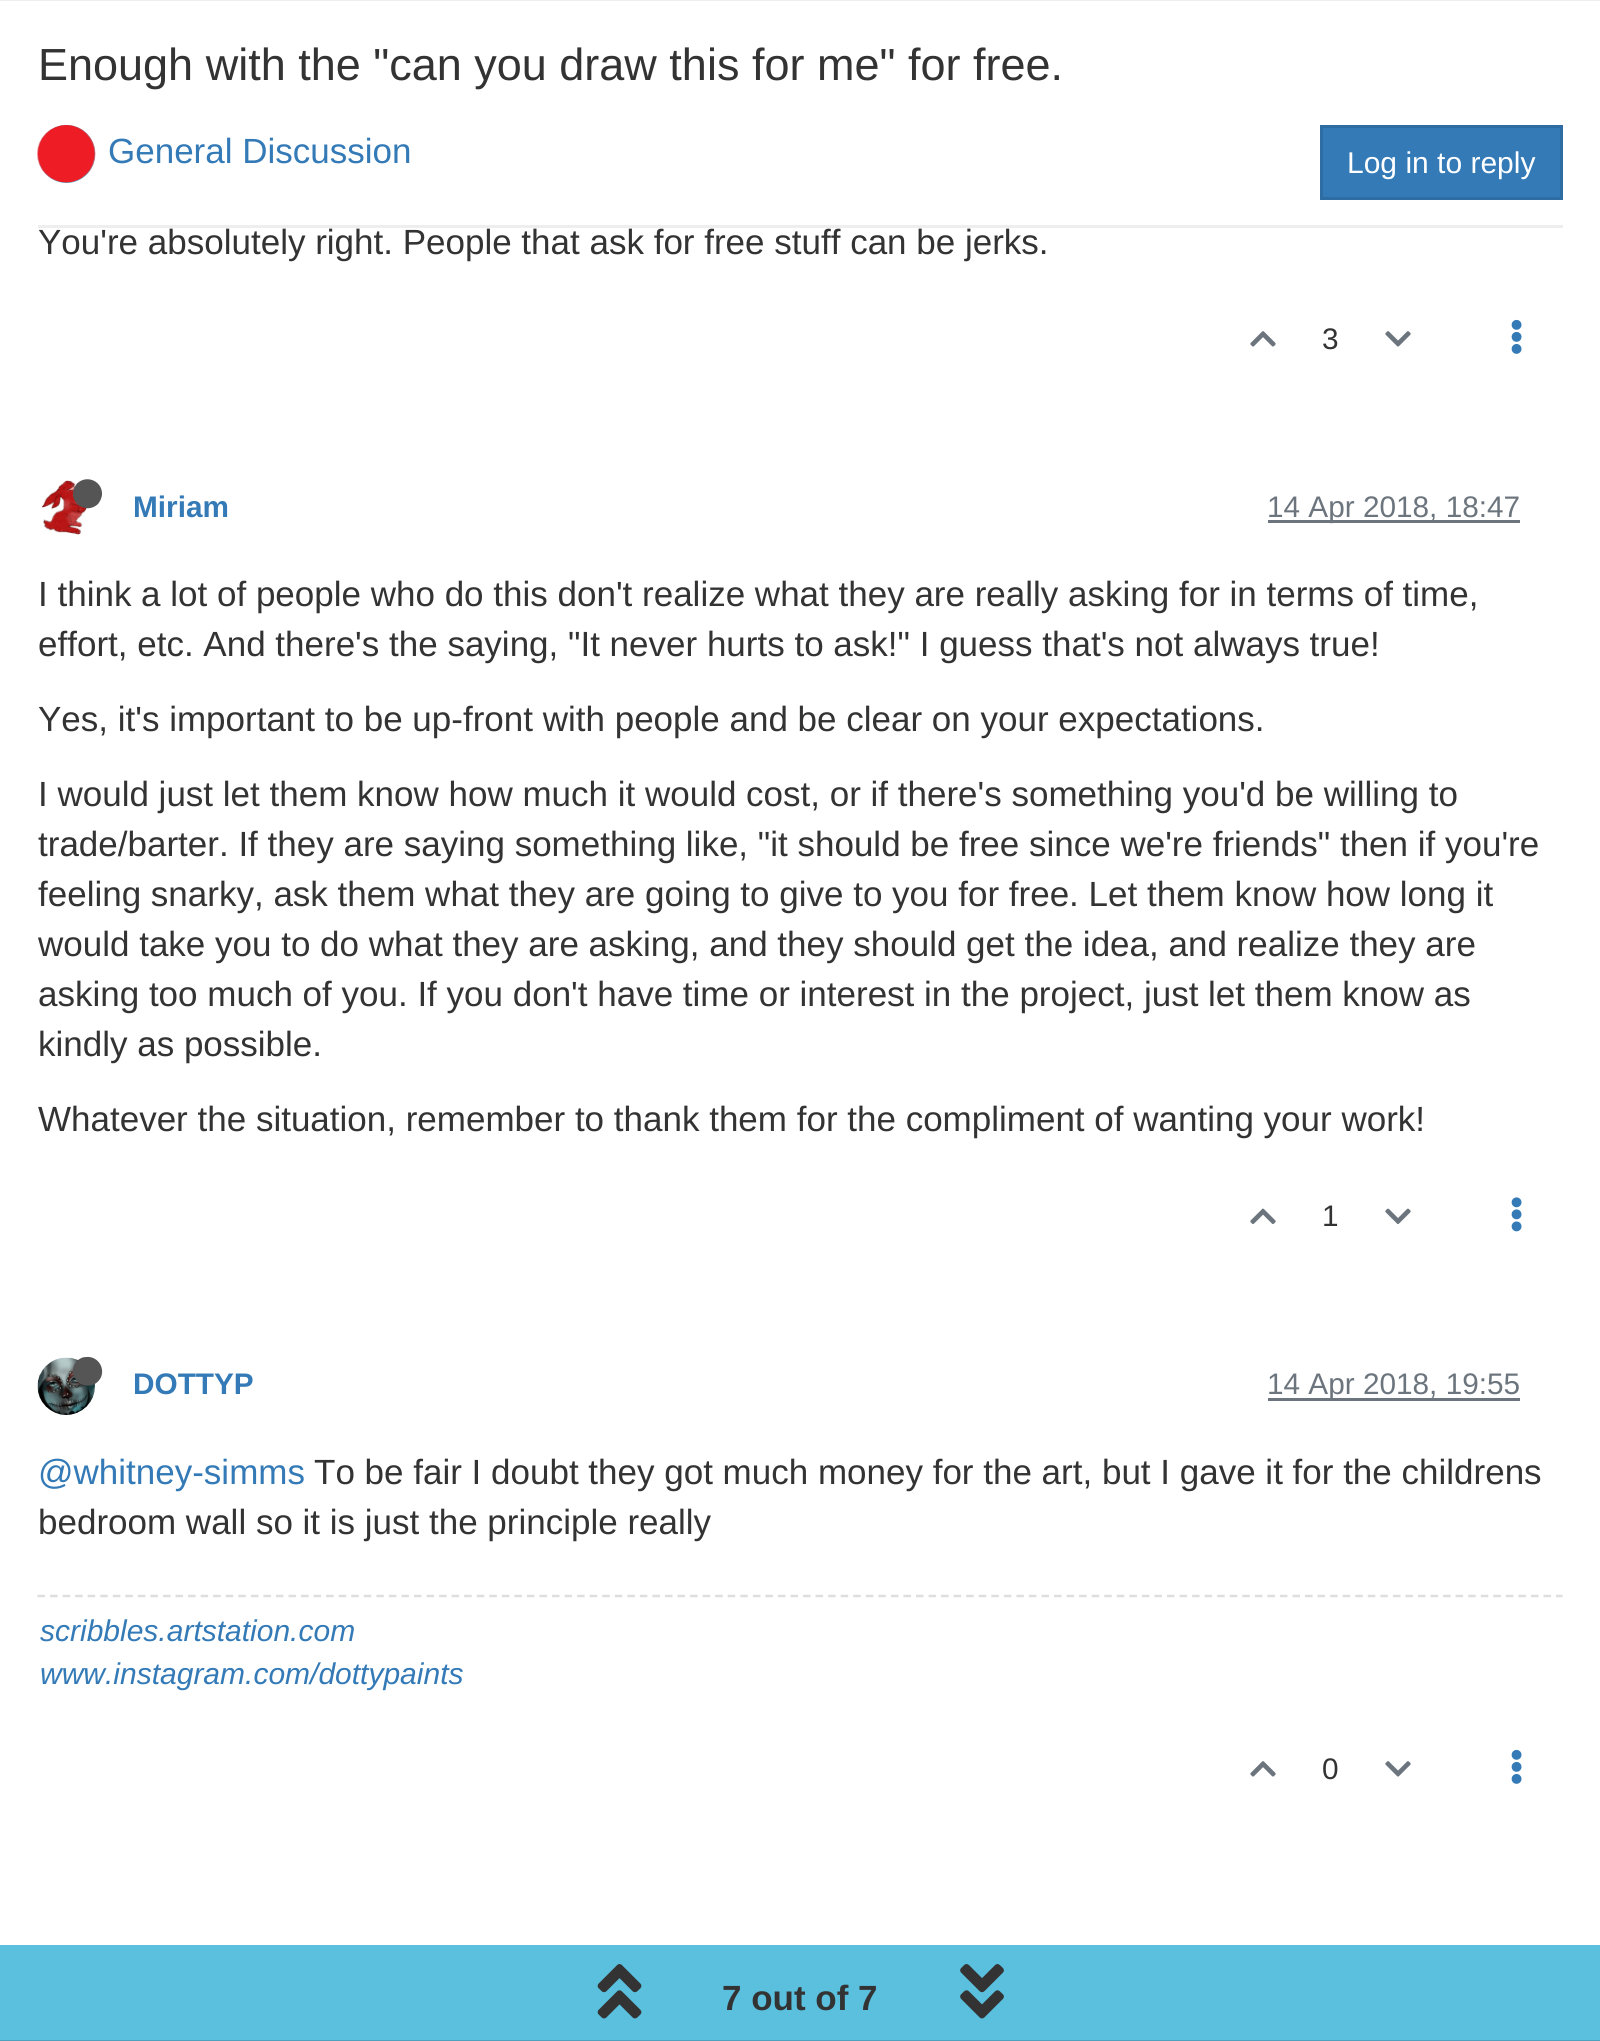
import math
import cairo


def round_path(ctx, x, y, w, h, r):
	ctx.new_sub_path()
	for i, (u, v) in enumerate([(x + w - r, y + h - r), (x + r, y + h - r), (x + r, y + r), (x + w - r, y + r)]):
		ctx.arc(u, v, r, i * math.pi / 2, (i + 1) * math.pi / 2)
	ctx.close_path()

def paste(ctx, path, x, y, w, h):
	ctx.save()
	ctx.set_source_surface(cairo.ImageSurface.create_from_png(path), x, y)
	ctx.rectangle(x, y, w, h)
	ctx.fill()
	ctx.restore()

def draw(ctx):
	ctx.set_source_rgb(1, 1, 1)
	ctx.paint()
	ctx.set_source_rgb(0.933, 0.933, 0.933)
	ctx.rectangle(0, 0, 1600, 1)
	ctx.fill()
	ctx.select_font_face('Liberation Sans')
	ctx.set_font_size(45)
	ctx.set_source_rgb(0.2, 0.2, 0.2)
	ctx.move_to(38, 80)
	ctx.show_text('Enough with the "can you draw this for me" for free.')
	ctx.set_source_rgb(0.933, 0.933, 0.933)
	ctx.rectangle(38, 225, 1525, 3)
	ctx.fill()
	ctx.set_source_rgb(0.349, 0.702, 0.816)
	round_path(ctx, 38, 125, 57, 58, 28.5)
	ctx.fill()
	paste(ctx, 'media/1.png', 37, 125, 59, 58)
	ctx.set_font_size(35)
	ctx.set_source_rgb(0.2, 0.478, 0.718)
	ctx.move_to(108, 163)
	ctx.show_text('General Discussion')
	ctx.rectangle(1321.5, 126.5, 240, 72)
	ctx.fill_preserve()
	ctx.set_source_rgb(0.18, 0.427, 0.643)
	ctx.set_line_width(3)
	ctx.stroke()
	ctx.set_font_size(30)
	ctx.set_source_rgb(1, 1, 1)
	ctx.move_to(1347, 173)
	ctx.show_text('Log in to reply')
	ctx.set_font_size(35)
	ctx.set_source_rgb(0.2, 0.2, 0.2)
	ctx.move_to(38, 254)
	ctx.show_text('You\'re absolutely right. People that ask for free stuff can be jerks.')
	paste(ctx, 'media/2.png', 1250, 331, 26, 16)
	ctx.set_font_size(29.75)
	ctx.move_to(1322, 349)
	ctx.show_text('3')
	paste(ctx, 'media/3.png', 1385, 331, 26, 16)
	paste(ctx, 'media/4.png', 1511, 319, 11, 35)
	paste(ctx, 'media/5.png', 42, 480, 45, 55)
	ctx.set_source_rgb(0.333, 0.333, 0.333)
	ctx.new_path()
	ctx.move_to(77, 483.5)
	ctx.curve_to(87, 474, 103, 481.5, 102, 495)
	ctx.curve_to(101.5, 498.5, 100, 501.5, 98, 504)
	ctx.curve_to(88, 513.5, 72, 506, 73, 492.5)
	ctx.curve_to(73.5, 489, 75, 486, 77, 483.5)
	ctx.close_path()
	ctx.fill()
	ctx.select_font_face('Liberation Sans', cairo.FONT_SLANT_NORMAL, cairo.FONT_WEIGHT_BOLD)
	ctx.set_source_rgb(0.2, 0.478, 0.718)
	ctx.move_to(133, 517)
	ctx.show_text('Miriam')
	ctx.set_source_rgb(0.424, 0.459, 0.49)
	ctx.rectangle(1268, 520, 252, 3)
	ctx.fill()
	ctx.select_font_face('Liberation Sans')
	ctx.move_to(1267, 517)
	ctx.show_text('14 Apr 2018, 18:47')
	ctx.set_font_size(35)
	ctx.set_source_rgb(0.2, 0.2, 0.2)
	for x, y, s in [
		(38, 606, 'I think a lot of people who do this don\'t realize what they are really asking for in terms of time,'),
		(38, 656, 'effort, etc. And there\'s the saying, "It never hurts to ask!" I guess that\'s not always true!'),
		(38, 731, 'Yes, it\'s important to be up-front with people and be clear on your expectations.'),
		(38, 806, 'I would just let them know how much it would cost, or if there\'s something you\'d be willing to'),
		(38, 856, 'trade/barter. If they are saying something like, "it should be free since we\'re friends" then if you\'re'),
		(38, 906, 'feeling snarky, ask them what they are going to give to you for free. Let them know how long it'),
		(38, 956, 'would take you to do what they are asking, and they should get the idea, and realize they are'),
		(38, 1006, 'asking too much of you. If you don\'t have time or interest in the project, just let them know as'),
		(38, 1056, 'kindly as possible.'),
		(38, 1131, 'Whatever the situation, remember to thank them for the compliment of wanting your work!'),
	]:
		ctx.move_to(x, y)
		ctx.show_text(s)
	paste(ctx, 'media/6.png', 1250, 1208, 26, 16)
	ctx.set_font_size(29.75)
	ctx.move_to(1322, 1226)
	ctx.show_text('1')
	paste(ctx, 'media/7.png', 1385, 1208, 26, 16)
	paste(ctx, 'media/8.png', 1511, 1197, 11, 35)
	paste(ctx, 'media/9.png', 37, 1357, 58, 58)
	ctx.set_source_rgb(0.333, 0.333, 0.333)
	ctx.new_path()
	ctx.move_to(77, 1361)
	ctx.curve_to(79.5, 1358.5, 82.5, 1357, 86, 1357)
	ctx.curve_to(99.5, 1355.5, 107.5, 1372, 98, 1381.5)
	ctx.curve_to(95.5, 1384, 92.5, 1385.5, 89, 1385.5)
	ctx.curve_to(75.5, 1387, 67.5, 1370.5, 77, 1361)
	ctx.close_path()
	ctx.fill()
	ctx.select_font_face('Liberation Sans', cairo.FONT_SLANT_NORMAL, cairo.FONT_WEIGHT_BOLD)
	ctx.set_source_rgb(0.2, 0.478, 0.718)
	ctx.move_to(133, 1394)
	ctx.show_text('DOTTYP')
	ctx.set_source_rgb(0.424, 0.459, 0.49)
	ctx.rectangle(1268, 1398, 252, 3)
	ctx.fill()
	ctx.select_font_face('Liberation Sans')
	ctx.move_to(1267, 1394)
	ctx.show_text('14 Apr 2018, 19:55')
	ctx.set_font_size(35)
	ctx.set_source_rgb(0.2, 0.478, 0.718)
	ctx.move_to(38, 1484)
	ctx.show_text('@whitney-simms')
	ctx.set_source_rgb(0.2, 0.2, 0.2)
	ctx.move_to(314, 1484)
	ctx.show_text('To be fair I doubt they got much money for the art, but I gave it for the childrens')
	ctx.move_to(38, 1534)
	ctx.show_text('bedroom wall so it is just the principle really')
	ctx.new_path()
	ctx.move_to(37.5, 1596)
	ctx.line_to(1562.5, 1596)
	ctx.set_source_rgb(0.871, 0.871, 0.871)
	ctx.set_line_width(2.5)
	ctx.set_dash([7.5, 5.05])
	ctx.stroke()
	ctx.select_font_face('Liberation Sans', cairo.FONT_SLANT_ITALIC)
	ctx.set_font_size(30)
	ctx.set_source_rgb(0.2, 0.478, 0.718)
	ctx.move_to(40, 1641)
	ctx.show_text('scribbles.artstation.com')
	ctx.move_to(40, 1684)
	ctx.show_text('www.instagram.com/dottypaints')
	paste(ctx, 'media/2.png', 1250, 1761, 26, 16)
	ctx.select_font_face('Liberation Sans')
	ctx.set_font_size(29.75)
	ctx.set_source_rgb(0.2, 0.2, 0.2)
	ctx.move_to(1322, 1779)
	ctx.show_text('0')
	paste(ctx, 'media/3.png', 1385, 1761, 26, 16)
	paste(ctx, 'media/4.png', 1511, 1749, 11, 35)
	ctx.set_source_rgb(0.357, 0.753, 0.871)
	ctx.rectangle(0, 1945, 1600, 95)
	ctx.fill()
	ctx.set_source_rgb(0.302, 0.639, 0.741)
	ctx.rectangle(0, 2040, 1600, 1)
	ctx.fill()
	paste(ctx, 'media/10.png', 597, 1964, 45, 55)
	ctx.select_font_face('Liberation Sans', cairo.FONT_SLANT_NORMAL, cairo.FONT_WEIGHT_BOLD)
	ctx.set_font_size(35)
	ctx.set_source_rgb(0.2, 0.2, 0.2)
	ctx.move_to(722, 2010)
	ctx.show_text('7 out of 7')
	paste(ctx, 'media/11.png', 960, 1964, 44, 55)


surface = cairo.ImageSurface(cairo.FORMAT_RGB24, 1600, 2041)
ctx = cairo.Context(surface)
options = cairo.FontOptions()
options.set_hint_metrics(cairo.HINT_METRICS_OFF)
options.set_hint_style(cairo.HINT_STYLE_NONE)
ctx.set_font_options(options)
ctx.set_miter_limit(4)
draw(ctx)
surface.write_to_png('image.png')
